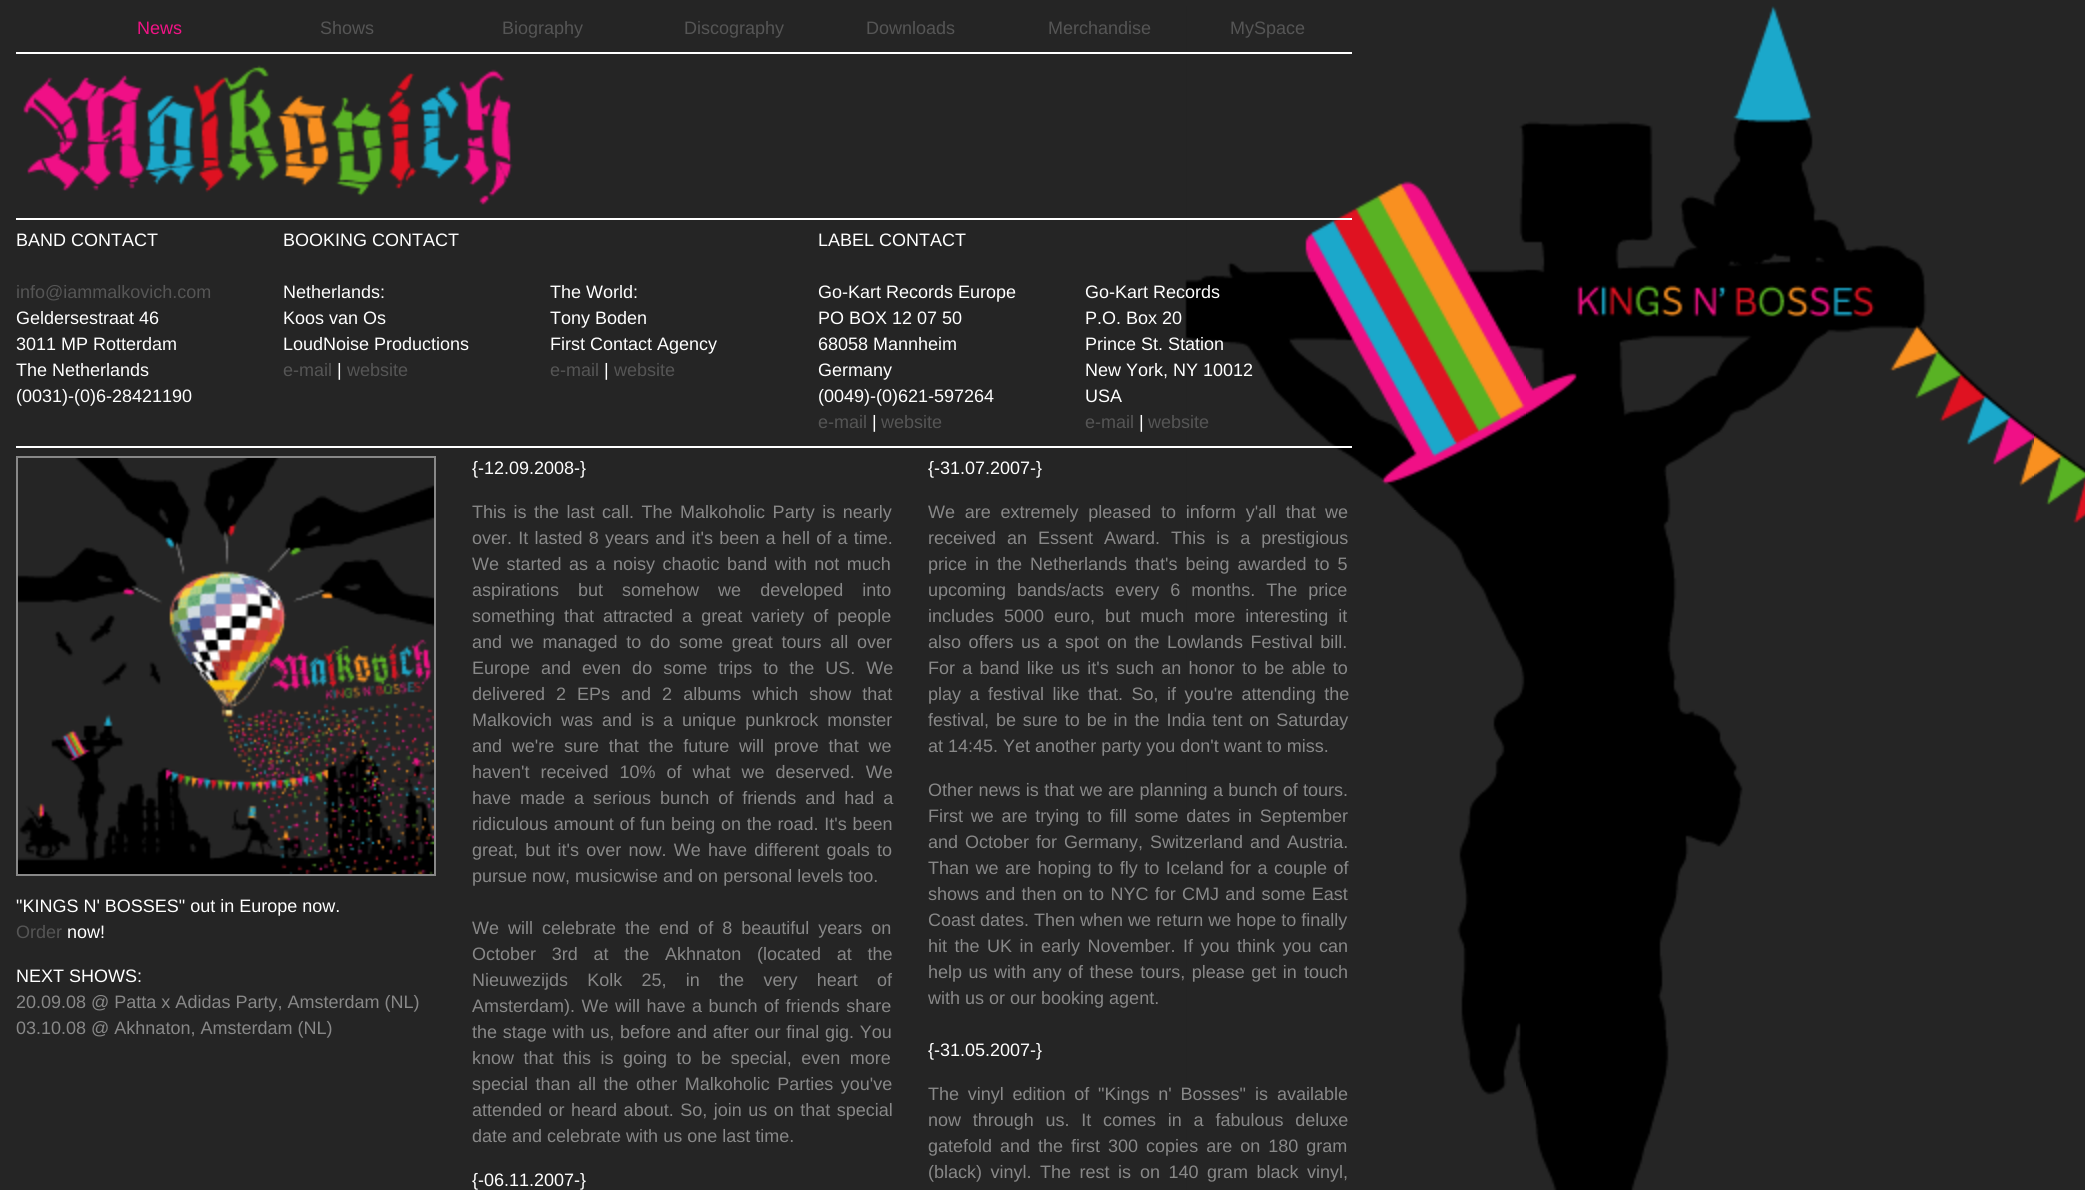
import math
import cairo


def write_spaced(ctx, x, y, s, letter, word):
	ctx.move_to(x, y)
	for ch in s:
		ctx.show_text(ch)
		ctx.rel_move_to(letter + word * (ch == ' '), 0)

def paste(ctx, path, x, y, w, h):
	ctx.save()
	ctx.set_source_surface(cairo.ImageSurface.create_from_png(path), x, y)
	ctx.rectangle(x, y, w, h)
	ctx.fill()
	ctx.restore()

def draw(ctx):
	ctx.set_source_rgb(0.145, 0.145, 0.145)
	ctx.paint()
	paste(ctx, 'media/1.png', 1185, 6, 900, 1184)
	ctx.select_font_face('Liberation Sans')
	ctx.set_font_size(18)
	ctx.set_source_rgb(0.941, 0.078, 0.522)
	ctx.move_to(137, 34)
	ctx.show_text('News')
	ctx.set_source_rgb(0.333, 0.333, 0.333)
	for x, y, s in [
		(320, 34, 'Shows'),
		(502, 34, 'Biography'),
		(684, 34, 'Discography'),
		(866, 34, 'Downloads'),
		(1048, 34, 'Merchandise'),
		(1230, 34, 'MySpace'),
	]:
		ctx.move_to(x, y)
		ctx.show_text(s)
	ctx.set_source_rgb(1, 1, 1)
	ctx.rectangle(16, 52, 1336, 2)
	ctx.fill()
	paste(ctx, 'media/2.png', 23, 65, 490, 140)
	ctx.rectangle(16, 218, 1336, 2)
	ctx.fill()
	ctx.move_to(16, 246)
	ctx.show_text('BAND CONTACT')
	ctx.set_source_rgb(0.333, 0.333, 0.333)
	ctx.move_to(16, 298)
	ctx.show_text('info@iammalkovich.com')
	ctx.set_source_rgb(1, 1, 1)
	for x, y, s in [
		(16, 324, 'Geldersestraat 46'),
		(16, 350, '3011 MP Rotterdam'),
		(16, 376, 'The Netherlands'),
		(16, 402, '(0031)-(0)6-28421190'),
		(283, 246, 'BOOKING CONTACT'),
		(283, 298, 'Netherlands:'),
		(283, 324, 'Koos van Os'),
		(283, 350, 'LoudNoise Productions'),
	]:
		ctx.move_to(x, y)
		ctx.show_text(s)
	ctx.set_source_rgb(0.333, 0.333, 0.333)
	ctx.move_to(283, 376)
	ctx.show_text('e-mail')
	ctx.set_source_rgb(1, 1, 1)
	ctx.move_to(337, 376)
	ctx.show_text('|')
	ctx.set_source_rgb(0.333, 0.333, 0.333)
	ctx.move_to(347, 376)
	ctx.show_text('website')
	ctx.set_source_rgb(1, 1, 1)
	for x, y, s in [
		(550, 298, 'The World:'),
		(550, 324, 'Tony Boden'),
		(550, 350, 'First Contact Agency'),
	]:
		ctx.move_to(x, y)
		ctx.show_text(s)
	ctx.set_source_rgb(0.333, 0.333, 0.333)
	ctx.move_to(550, 376)
	ctx.show_text('e-mail')
	ctx.set_source_rgb(1, 1, 1)
	ctx.move_to(604, 376)
	ctx.show_text('|')
	ctx.set_source_rgb(0.333, 0.333, 0.333)
	ctx.move_to(614, 376)
	ctx.show_text('website')
	ctx.set_source_rgb(1, 1, 1)
	for x, y, s in [
		(818, 246, 'LABEL CONTACT'),
		(818, 298, 'Go-Kart Records Europe'),
		(818, 324, 'PO BOX 12 07 50'),
		(818, 350, '68058 Mannheim'),
		(818, 376, 'Germany'),
		(818, 402, '(0049)-(0)621-597264'),
	]:
		ctx.move_to(x, y)
		ctx.show_text(s)
	ctx.set_source_rgb(0.333, 0.333, 0.333)
	ctx.move_to(818, 428)
	ctx.show_text('e-mail')
	ctx.set_source_rgb(1, 1, 1)
	ctx.move_to(872, 428)
	ctx.show_text('|')
	ctx.set_source_rgb(0.333, 0.333, 0.333)
	ctx.move_to(881, 428)
	ctx.show_text('website')
	ctx.set_source_rgb(1, 1, 1)
	for x, y, s in [
		(1085, 298, 'Go-Kart Records'),
		(1085, 324, 'P.O. Box 20'),
		(1085, 350, 'Prince St. Station'),
		(1085, 376, 'New York, NY 10012'),
		(1085, 402, 'USA'),
	]:
		ctx.move_to(x, y)
		ctx.show_text(s)
	ctx.set_source_rgb(0.333, 0.333, 0.333)
	ctx.move_to(1085, 428)
	ctx.show_text('e-mail')
	ctx.set_source_rgb(1, 1, 1)
	ctx.move_to(1139, 428)
	ctx.show_text('|')
	ctx.set_source_rgb(0.333, 0.333, 0.333)
	ctx.move_to(1148, 428)
	ctx.show_text('website')
	ctx.set_source_rgb(1, 1, 1)
	ctx.rectangle(16, 446, 1336, 2)
	ctx.fill()
	ctx.rectangle(17, 457, 418, 418)
	ctx.set_source_rgb(0.533, 0.533, 0.533)
	ctx.stroke()
	paste(ctx, 'media/3.png', 18, 458, 416, 416)
	ctx.set_source_rgb(1, 1, 1)
	ctx.move_to(16, 912)
	ctx.show_text('"KINGS N\' BOSSES" out in Europe now.')
	ctx.set_source_rgb(0.333, 0.333, 0.333)
	ctx.move_to(16, 938)
	ctx.show_text('Order')
	ctx.set_source_rgb(1, 1, 1)
	ctx.move_to(67, 938)
	ctx.show_text('now!')
	ctx.move_to(16, 982)
	ctx.show_text('NEXT SHOWS:')
	ctx.set_source_rgb(0.533, 0.533, 0.533)
	ctx.move_to(16, 1008)
	ctx.show_text('20.09.08 @ Patta x Adidas Party, Amsterdam (NL)')
	ctx.move_to(16, 1034)
	ctx.show_text('03.10.08 @ Akhnaton, Amsterdam (NL)')
	ctx.set_source_rgb(1, 1, 1)
	ctx.move_to(472, 474)
	ctx.show_text('{-12.09.2008-}')
	ctx.set_source_rgb(0.533, 0.533, 0.533)
	write_spaced(ctx, 472, 518, 'This is the last call. The Malkoholic Party is nearly', 0, 2.5)
	write_spaced(ctx, 472, 544, 'over. It lasted 8 years and it\'s been a hell of a time.', 0, 1.25)
	write_spaced(ctx, 472, 570, 'We started as a noisy chaotic band with not much', 0, 2.5)
	write_spaced(ctx, 472, 596, 'aspirations but somehow we developed into', 0, 14)
	write_spaced(ctx, 472, 622, 'something that attracted a great variety of people', 0, 4)
	write_spaced(ctx, 472, 648, 'and we managed to do some great tours all over', 0, 3.75)
	write_spaced(ctx, 472, 674, 'Europe and even do some trips to the US. We', 0, 6)
	write_spaced(ctx, 472, 700, 'delivered 2 EPs and 2 albums which show that', 0, 6)
	write_spaced(ctx, 472, 726, 'Malkovich was and is a unique punkrock monster', 0, 4)
	write_spaced(ctx, 472, 752, 'and we\'re sure that the future will prove that we', 0, 4.75)
	write_spaced(ctx, 472, 778, 'haven\'t received 10% of what we deserved. We', 0, 6)
	write_spaced(ctx, 472, 804, 'have made a serious bunch of friends and had a', 0, 4)
	write_spaced(ctx, 472, 830, 'ridiculous amount of fun being on the road. It\'s been', 0, 0.75)
	write_spaced(ctx, 472, 856, 'great, but it\'s over now. We have different goals to', 0, 2.25)
	ctx.move_to(472, 882)
	ctx.show_text('pursue now, musicwise and on personal levels too.')
	write_spaced(ctx, 472, 934, 'We will celebrate the end of 8 beautiful years on', 0, 4)
	write_spaced(ctx, 472, 960, 'October 3rd at the Akhnaton (located at the', 0, 10.75)
	write_spaced(ctx, 472, 986, 'Nieuwezijds Kolk 25, in the very heart of', 0, 14.25)
	write_spaced(ctx, 472, 1012, 'Amsterdam). We will have a bunch of friends share', 0, 1.5)
	write_spaced(ctx, 472, 1038, 'the stage with us, before and after our final gig. You', 0, 0.75)
	write_spaced(ctx, 472, 1064, 'know that this is going to be special, even more', 0, 4.5)
	write_spaced(ctx, 472, 1090, 'special than all the other Malkoholic Parties you\'ve', 0, 2.5)
	write_spaced(ctx, 472, 1116, 'attended or heard about. So, join us on that special', 0, 1.5)
	ctx.move_to(472, 1142)
	ctx.show_text('date and celebrate with us one last time.')
	ctx.set_source_rgb(1, 1, 1)
	ctx.move_to(472, 1186)
	ctx.show_text('{-06.11.2007-}')
	ctx.move_to(928, 474)
	ctx.show_text('{-31.07.2007-}')
	ctx.set_source_rgb(0.533, 0.533, 0.533)
	write_spaced(ctx, 928, 518, 'We are extremely pleased to inform y\'all that', 0, 4.75)
	ctx.move_to(1325, 518)
	ctx.show_text('we')
	write_spaced(ctx, 928, 544, 'received an Essent Award. This is a prestigious', 0, 6)
	write_spaced(ctx, 928, 570, 'price in the Netherlands', 0, 3)
	write_spaced(ctx, 1135, 570, 'that\'s being awarded to 5', 0, 3)
	write_spaced(ctx, 928, 596, 'upcoming bands/acts every 6 months. The price', 0, 6)
	write_spaced(ctx, 928, 622, 'includes 5000 euro, but much more interesting it', 0, 5)
	write_spaced(ctx, 928, 648, 'also offers us a spot', 0, 2.5)
	write_spaced(ctx, 1107, 648, 'on the Lowlands Festival bill.', 0, 2.5)
	write_spaced(ctx, 928, 674, 'For a band like us it\'s such an honor', 0, 2.25)
	write_spaced(ctx, 1242, 674, 'to be able to', 0, 2.25)
	write_spaced(ctx, 928, 700, 'play a festival like that. So, if you\'re attending the', 0, 3.5)
	write_spaced(ctx, 928, 726, 'festival, be sure to be in the India tent on Saturday', 0, 1.9)
	ctx.move_to(928, 752)
	ctx.show_text('at 14:45. Yet another party you don\'t want to miss.')
	write_spaced(ctx, 928, 796, 'Other news is that we are planning a bunch of', 0, 0.4)
	ctx.move_to(1303, 796)
	ctx.show_text('tours.')
	write_spaced(ctx, 928, 822, 'First we are trying to fill some dates in September', 0, 2.75)
	write_spaced(ctx, 928, 848, 'and October', 0, 2)
	write_spaced(ctx, 1036, 848, 'for Germany, Switzerland and Austria.', 0, 2)
	write_spaced(ctx, 928, 874, 'Than we are hoping to fly to Iceland', 0, 1.5)
	write_spaced(ctx, 1230, 874, 'for a couple of', 0, 1.5)
	write_spaced(ctx, 928, 900, 'shows and then on to NYC for CMJ and some East', 0, 1.25)
	ctx.move_to(928, 926)
	ctx.show_text('Coast dates. Then when we return we hope to finally')
	write_spaced(ctx, 928, 952, 'hit the UK in early November.', 0, 2.5)
	write_spaced(ctx, 1183, 952, 'If you think you can', 0, 2.5)
	write_spaced(ctx, 928, 978, 'help us with any of these tours, please get in', 0, 1.5)
	ctx.move_to(1304, 978)
	ctx.show_text('touch')
	ctx.move_to(928, 1004)
	ctx.show_text('with us or our booking agent.')
	ctx.set_source_rgb(1, 1, 1)
	ctx.move_to(928, 1056)
	ctx.show_text('{-31.05.2007-}')
	ctx.set_source_rgb(0.533, 0.533, 0.533)
	write_spaced(ctx, 928, 1100, 'The vinyl edition of "Kings n\' Bosses"', 0, 3.75)
	write_spaced(ctx, 1255, 1100, 'is available', 0, 4)
	write_spaced(ctx, 928, 1126, 'now through us. It comes in a fabulous deluxe', 0, 6.75)
	ctx.move_to(928, 1152)
	ctx.show_text('gatefold')
	write_spaced(ctx, 1000, 1152, 'and the first 300 copies are on 180 gram', 0, 3)
	write_spaced(ctx, 928, 1178, '(black) vinyl. The rest is', 0, 3.5)
	write_spaced(ctx, 1140, 1178, 'on 140 gram black vinyl,', 0, 3.5)


surface = cairo.ImageSurface(cairo.FORMAT_RGB24, 2085, 1190)
ctx = cairo.Context(surface)
options = cairo.FontOptions()
options.set_hint_metrics(cairo.HINT_METRICS_OFF)
options.set_hint_style(cairo.HINT_STYLE_NONE)
ctx.set_font_options(options)
ctx.set_miter_limit(4)
draw(ctx)
surface.write_to_png('image.png')
